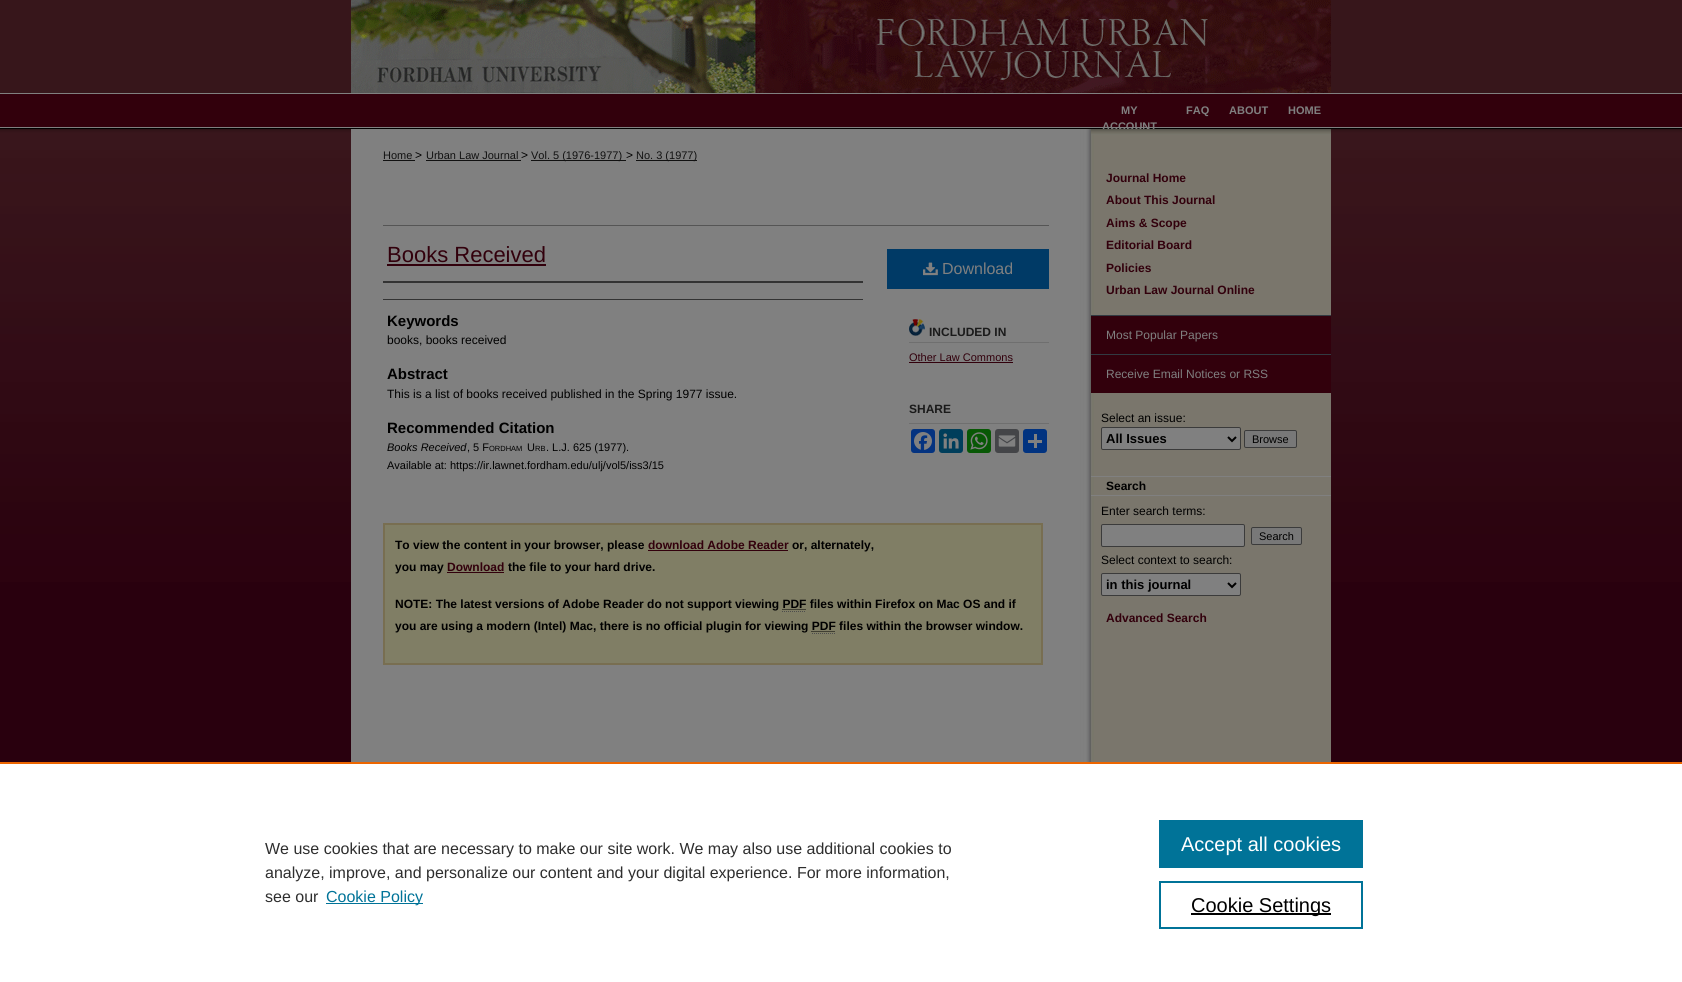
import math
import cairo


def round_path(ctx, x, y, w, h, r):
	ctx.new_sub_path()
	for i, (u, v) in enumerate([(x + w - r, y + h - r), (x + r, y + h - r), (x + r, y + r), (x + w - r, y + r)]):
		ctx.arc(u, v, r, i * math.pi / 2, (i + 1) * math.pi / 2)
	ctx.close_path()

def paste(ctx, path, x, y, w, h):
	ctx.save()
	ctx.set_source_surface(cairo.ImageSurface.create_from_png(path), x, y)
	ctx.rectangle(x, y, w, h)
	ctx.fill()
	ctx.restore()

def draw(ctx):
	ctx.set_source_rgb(0.161, 0, 0.055)
	ctx.paint()
	paste(ctx, 'media/1.png', 0, 0, 1682, 582)
	paste(ctx, 'media/2.png', 351, 0, 980, 93)
	ctx.select_font_face('Liberation Sans', cairo.FONT_SLANT_NORMAL, cairo.FONT_WEIGHT_BOLD)
	ctx.set_font_size(11)
	ctx.set_source_rgb(0.502, 0.502, 0.502)
	ctx.move_to(1121, 114)
	ctx.show_text('MY')
	paste(ctx, 'media/3.png', 351, 129, 980, 633)
	for x, y, s in [
		(1102, 130, 'ACCOUNT'),
		(1186, 114, 'FAQ'),
		(1229, 114, 'ABOUT'),
		(1288, 114, 'HOME'),
	]:
		ctx.move_to(x, y)
		ctx.show_text(s)
	ctx.select_font_face('Liberation Sans')
	ctx.set_source_rgb(0.067, 0.067, 0.067)
	ctx.move_to(383, 159)
	ctx.show_text('Home')
	ctx.rectangle(383, 160, 32, 1)
	ctx.fill()
	ctx.set_font_size(12)
	ctx.set_source_rgb(0, 0, 0)
	ctx.move_to(415, 159)
	ctx.show_text('>')
	ctx.set_font_size(11)
	ctx.set_source_rgb(0.067, 0.067, 0.067)
	ctx.move_to(426, 159)
	ctx.show_text('Urban Law Journal')
	ctx.rectangle(426, 160, 95, 1)
	ctx.fill()
	ctx.set_font_size(12)
	ctx.set_source_rgb(0, 0, 0)
	ctx.move_to(521, 159)
	ctx.show_text('>')
	ctx.set_source_rgb(0.067, 0.067, 0.067)
	ctx.rectangle(531, 160, 95, 1)
	ctx.fill()
	ctx.set_font_size(11)
	ctx.move_to(531, 159)
	ctx.show_text('Vol. 5 (1976-1977)')
	ctx.set_font_size(12)
	ctx.set_source_rgb(0, 0, 0)
	ctx.move_to(626, 159)
	ctx.show_text('>')
	ctx.set_source_rgb(0.067, 0.067, 0.067)
	ctx.rectangle(636, 160, 61, 1)
	ctx.fill()
	ctx.set_font_size(11)
	ctx.move_to(636, 159)
	ctx.show_text('No. 3 (1977)')
	ctx.set_source_rgb(0.333, 0.333, 0.333)
	ctx.rectangle(383, 225, 666, 1)
	ctx.fill()
	ctx.set_font_size(22)
	ctx.set_source_rgb(0.196, 0, 0.047)
	ctx.move_to(387, 262)
	ctx.show_text('Books Received')
	ctx.rectangle(387, 264, 159, 2)
	ctx.fill()
	ctx.set_source_rgb(0.2, 0.2, 0.2)
	ctx.rectangle(383, 281, 480, 2)
	ctx.rectangle(383, 299, 480, 1)
	ctx.fill()
	ctx.select_font_face('Liberation Sans', cairo.FONT_SLANT_NORMAL, cairo.FONT_WEIGHT_BOLD)
	ctx.set_font_size(15)
	ctx.set_source_rgb(0, 0, 0)
	ctx.move_to(387, 326)
	ctx.show_text('Keywords')
	ctx.select_font_face('Liberation Sans')
	ctx.set_font_size(12)
	ctx.move_to(387, 344)
	ctx.show_text('books, books received')
	ctx.select_font_face('Liberation Sans', cairo.FONT_SLANT_NORMAL, cairo.FONT_WEIGHT_BOLD)
	ctx.set_font_size(15)
	ctx.move_to(387, 379)
	ctx.show_text('Abstract')
	ctx.select_font_face('Liberation Sans')
	ctx.set_font_size(12)
	ctx.move_to(387, 398)
	ctx.show_text('This is a list of books received published in the Spring 1977 issue.')
	ctx.select_font_face('Liberation Sans', cairo.FONT_SLANT_NORMAL, cairo.FONT_WEIGHT_BOLD)
	ctx.set_font_size(15)
	ctx.move_to(387, 433)
	ctx.show_text('Recommended Citation')
	ctx.select_font_face('Liberation Sans', cairo.FONT_SLANT_ITALIC)
	ctx.set_font_size(11)
	ctx.move_to(387, 451)
	ctx.show_text('Books Received')
	ctx.select_font_face('Liberation Sans')
	ctx.move_to(467, 451)
	ctx.show_text(', 5 F')
	ctx.set_font_size(7.5)
	ctx.move_to(489, 451)
	ctx.show_text('ORDHAM')
	ctx.set_font_size(11)
	ctx.move_to(527, 451)
	ctx.show_text('U')
	ctx.set_font_size(7.5)
	ctx.move_to(535, 451)
	ctx.show_text('RB')
	ctx.set_font_size(11)
	ctx.move_to(546, 451)
	ctx.show_text('. L.J. 625 (1977).')
	ctx.move_to(387, 469)
	ctx.show_text('Available at: https://ir.lawnet.fordham.edu/ulj/vol5/iss3/15')
	ctx.set_source_rgb(0, 0.227, 0.4)
	ctx.rectangle(887, 249, 162, 40)
	ctx.fill()
	paste(ctx, 'media/4.png', 923, 262, 15, 14)
	ctx.set_font_size(16)
	ctx.set_source_rgb(0.502, 0.502, 0.502)
	ctx.move_to(942, 274)
	ctx.show_text('Download')
	paste(ctx, 'media/5.png', 909, 319, 16, 17)
	ctx.set_source_rgb(0.435, 0.435, 0.435)
	ctx.rectangle(909, 342, 140, 1)
	ctx.fill()
	ctx.select_font_face('Liberation Sans', cairo.FONT_SLANT_NORMAL, cairo.FONT_WEIGHT_BOLD)
	ctx.set_font_size(12)
	ctx.set_source_rgb(0.102, 0.102, 0.102)
	ctx.move_to(929, 336)
	ctx.show_text('INCLUDED IN')
	ctx.select_font_face('Liberation Sans')
	ctx.set_font_size(11)
	ctx.set_source_rgb(0.196, 0, 0.047)
	ctx.move_to(909, 361)
	ctx.show_text('Other Law Commons')
	ctx.rectangle(909, 362, 104, 1)
	ctx.fill()
	ctx.set_source_rgb(0.435, 0.435, 0.435)
	ctx.rectangle(909, 423, 140, 1)
	ctx.fill()
	ctx.select_font_face('Liberation Sans', cairo.FONT_SLANT_NORMAL, cairo.FONT_WEIGHT_BOLD)
	ctx.set_font_size(12)
	ctx.set_source_rgb(0.102, 0.102, 0.102)
	ctx.move_to(909, 413)
	ctx.show_text('SHARE')
	ctx.set_source_rgb(0.016, 0.2, 0.502)
	round_path(ctx, 911, 429, 24, 24, 3)
	ctx.fill()
	paste(ctx, 'media/6.png', 914, 432, 18, 18)
	ctx.set_source_rgb(0, 0.243, 0.357)
	round_path(ctx, 939, 429, 24, 24, 3)
	ctx.fill()
	paste(ctx, 'media/7.png', 943, 433, 16, 16)
	ctx.set_source_rgb(0.035, 0.345, 0.02)
	round_path(ctx, 967, 429, 24, 24, 3)
	ctx.fill()
	paste(ctx, 'media/8.png', 970, 432, 18, 18)
	ctx.set_source_rgb(0.267, 0.271, 0.282)
	round_path(ctx, 995, 429, 24, 24, 3)
	ctx.fill()
	paste(ctx, 'media/9.png', 998, 435, 18, 12)
	ctx.set_source_rgb(0.004, 0.2, 0.502)
	round_path(ctx, 1023, 429, 24, 24, 3)
	ctx.fill()
	ctx.set_source_rgb(0.502, 0.502, 0.502)
	ctx.rectangle(1034, 434, 3, 14)
	ctx.fill()
	ctx.rectangle(1028, 440, 14, 3)
	ctx.fill()
	ctx.set_source_rgb(0.502, 0.494, 0.396)
	ctx.rectangle(384, 524, 658, 140)
	ctx.fill_preserve()
	ctx.set_source_rgb(0.471, 0.431, 0.318)
	ctx.stroke()
	ctx.set_source_rgb(0, 0, 0)
	ctx.move_to(395, 549)
	ctx.show_text('To view the content in your browser, please')
	ctx.set_source_rgb(0.196, 0, 0.047)
	ctx.move_to(648, 549)
	ctx.show_text('download Adobe Reader')
	ctx.rectangle(648, 550, 140, 1)
	ctx.fill()
	ctx.set_source_rgb(0, 0, 0)
	ctx.move_to(792, 549)
	ctx.show_text('or, alternately,')
	ctx.move_to(395, 571)
	ctx.show_text('you may')
	ctx.set_source_rgb(0.196, 0, 0.047)
	ctx.move_to(447, 571)
	ctx.show_text('Download')
	ctx.rectangle(447, 572, 57, 1)
	ctx.fill()
	ctx.set_source_rgb(0, 0, 0)
	ctx.move_to(508, 571)
	ctx.show_text('the file to your hard drive.')
	ctx.move_to(395, 608)
	ctx.show_text('NOTE: The latest versions of Adobe Reader do not support viewing PDF files within Firefox on Mac OS and if')
	ctx.new_path()
	ctx.move_to(782.5, 609.5)
	ctx.line_to(806.5, 609.5)
	ctx.set_line_width(1)
	ctx.set_dash([1, 1])
	ctx.stroke()
	ctx.new_path()
	ctx.move_to(782, 611.5)
	ctx.line_to(806, 611.5)
	ctx.set_source_rgb(0.302, 0.302, 0.302)
	ctx.stroke()
	ctx.set_source_rgb(0, 0, 0)
	ctx.move_to(395, 630)
	ctx.show_text('you are using a modern (Intel) Mac, there is no official plugin for viewing PDF files within the browser window.')
	ctx.new_path()
	ctx.move_to(811.5, 631.5)
	ctx.line_to(835.5, 631.5)
	ctx.stroke()
	ctx.new_path()
	ctx.move_to(812, 633.5)
	ctx.line_to(836, 633.5)
	ctx.set_source_rgb(0.302, 0.302, 0.302)
	ctx.stroke()
	paste(ctx, 'media/10.png', 1091, 129, 240, 6)
	ctx.set_source_rgb(0.196, 0, 0.047)
	for x, y, s in [
		(1106, 182, 'Journal Home'),
		(1106, 204, 'About This Journal'),
		(1106, 227, 'Aims & Scope'),
		(1106, 249, 'Editorial Board'),
		(1106, 272, 'Policies'),
		(1106, 294, 'Urban Law Journal Online'),
	]:
		ctx.move_to(x, y)
		ctx.show_text(s)
	ctx.rectangle(1091, 316, 240, 38)
	ctx.fill()
	ctx.set_source_rgb(0.196, 0.227, 0.259)
	ctx.rectangle(1091, 315, 240, 1)
	ctx.fill()
	ctx.select_font_face('Liberation Sans')
	ctx.set_source_rgb(0.502, 0.502, 0.502)
	ctx.move_to(1106, 339)
	ctx.show_text('Most Popular Papers')
	ctx.set_source_rgb(0.196, 0, 0.047)
	ctx.rectangle(1091, 355, 240, 38)
	ctx.fill()
	ctx.set_source_rgb(0.196, 0.227, 0.259)
	ctx.rectangle(1091, 354, 240, 1)
	ctx.fill()
	ctx.set_source_rgb(0.502, 0.502, 0.502)
	ctx.move_to(1106, 378)
	ctx.show_text('Receive Email Notices or RSS')
	ctx.set_source_rgb(0, 0, 0)
	ctx.move_to(1101, 422)
	ctx.show_text('Select an issue:')
	ctx.set_source_rgb(0.502, 0.502, 0.502)
	round_path(ctx, 1101.5, 427.5, 139, 22, 1.5)
	ctx.fill_preserve()
	ctx.set_source_rgb(0.231, 0.231, 0.231)
	ctx.set_dash([])
	ctx.stroke()
	ctx.new_path()
	ctx.move_to(1228, 437)
	ctx.line_to(1232, 441)
	ctx.line_to(1236, 437)
	ctx.set_source_rgb(0, 0, 0)
	ctx.set_line_width(2)
	ctx.stroke()
	ctx.select_font_face('Liberation Sans', cairo.FONT_SLANT_NORMAL, cairo.FONT_WEIGHT_BOLD)
	ctx.set_font_size(13)
	ctx.move_to(1106, 443)
	ctx.show_text('All Issues')
	ctx.set_source_rgb(0.471, 0.471, 0.471)
	round_path(ctx, 1244.5, 430.5, 52, 17, 1.5)
	ctx.fill_preserve()
	ctx.set_source_rgb(0.231, 0.231, 0.231)
	ctx.set_line_width(1)
	ctx.stroke()
	ctx.select_font_face('Liberation Sans')
	ctx.set_font_size(11)
	ctx.set_source_rgb(0, 0, 0)
	ctx.move_to(1252, 443)
	ctx.show_text('Browse')
	ctx.set_source_rgb(0.475, 0.467, 0.42)
	ctx.rectangle(1091, 477, 1, 18)
	ctx.fill()
	ctx.set_source_rgb(0.502, 0.502, 0.502)
	ctx.rectangle(1091, 476, 240, 1)
	ctx.rectangle(1091, 495, 240, 1)
	ctx.fill()
	ctx.select_font_face('Liberation Sans', cairo.FONT_SLANT_NORMAL, cairo.FONT_WEIGHT_BOLD)
	ctx.set_font_size(12)
	ctx.set_source_rgb(0, 0, 0)
	ctx.move_to(1106, 490)
	ctx.show_text('Search')
	ctx.select_font_face('Liberation Sans')
	ctx.move_to(1101, 515)
	ctx.show_text('Enter search terms:')
	ctx.set_source_rgb(0.502, 0.502, 0.502)
	round_path(ctx, 1101.5, 524.5, 143, 22, 1.5)
	ctx.fill_preserve()
	ctx.set_source_rgb(0.231, 0.231, 0.231)
	ctx.stroke()
	ctx.set_source_rgb(0.471, 0.471, 0.471)
	round_path(ctx, 1251.5, 527.5, 50, 17, 1.5)
	ctx.fill_preserve()
	ctx.set_source_rgb(0.231, 0.231, 0.231)
	ctx.stroke()
	ctx.set_font_size(11)
	ctx.set_source_rgb(0, 0, 0)
	ctx.move_to(1259, 540)
	ctx.show_text('Search')
	ctx.set_font_size(12)
	ctx.move_to(1101, 564)
	ctx.show_text('Select context to search:')
	ctx.set_source_rgb(0.502, 0.502, 0.502)
	round_path(ctx, 1101.5, 573.5, 139, 22, 1.5)
	ctx.fill_preserve()
	ctx.set_source_rgb(0.231, 0.231, 0.231)
	ctx.stroke()
	ctx.new_path()
	ctx.move_to(1228, 583)
	ctx.line_to(1232, 587)
	ctx.line_to(1236, 583)
	ctx.set_source_rgb(0, 0, 0)
	ctx.set_line_width(2)
	ctx.stroke()
	ctx.select_font_face('Liberation Sans', cairo.FONT_SLANT_NORMAL, cairo.FONT_WEIGHT_BOLD)
	ctx.set_font_size(13)
	ctx.move_to(1106, 589)
	ctx.show_text('in this journal')
	ctx.set_font_size(12)
	ctx.set_source_rgb(0.196, 0, 0.047)
	ctx.move_to(1106, 622)
	ctx.show_text('Advanced Search')
	ctx.set_source_rgb(1, 1, 1)
	ctx.rectangle(0, 764, 1682, 218)
	ctx.fill()
	ctx.set_source_rgb(0.922, 0.396, 0)
	ctx.rectangle(0, 762, 1682, 2)
	ctx.fill()
	ctx.select_font_face('Liberation Sans')
	ctx.set_font_size(16)
	ctx.set_source_rgb(0.18, 0.18, 0.18)
	for x, y, s in [
		(265, 854, 'We use cookies that are necessary to make our site work. We may also use additional cookies to'),
		(265, 878, 'analyze, improve, and personalize our content and your digital experience. For more information,'),
		(265, 902, 'see our'),
	]:
		ctx.move_to(x, y)
		ctx.show_text(s)
	ctx.set_source_rgb(0, 0.451, 0.596)
	ctx.rectangle(326, 903, 97, 1)
	ctx.fill()
	ctx.move_to(326, 902)
	ctx.show_text('Cookie Policy')
	ctx.rectangle(1159, 820, 204, 48)
	ctx.fill()
	ctx.set_font_size(20)
	ctx.set_source_rgb(1, 1, 1)
	ctx.move_to(1181, 851)
	ctx.show_text('Accept all cookies')
	ctx.rectangle(1160, 882, 202, 46)
	ctx.set_source_rgb(0, 0.451, 0.596)
	ctx.stroke()
	ctx.set_source_rgb(0, 0, 0)
	ctx.rectangle(1191, 913, 140, 2)
	ctx.fill()
	ctx.move_to(1191, 912)
	ctx.show_text('Cookie Settings')


surface = cairo.ImageSurface(cairo.FORMAT_RGB24, 1682, 982)
ctx = cairo.Context(surface)
options = cairo.FontOptions()
options.set_hint_metrics(cairo.HINT_METRICS_OFF)
options.set_hint_style(cairo.HINT_STYLE_NONE)
ctx.set_font_options(options)
ctx.set_miter_limit(4)
draw(ctx)
surface.write_to_png('image.png')
